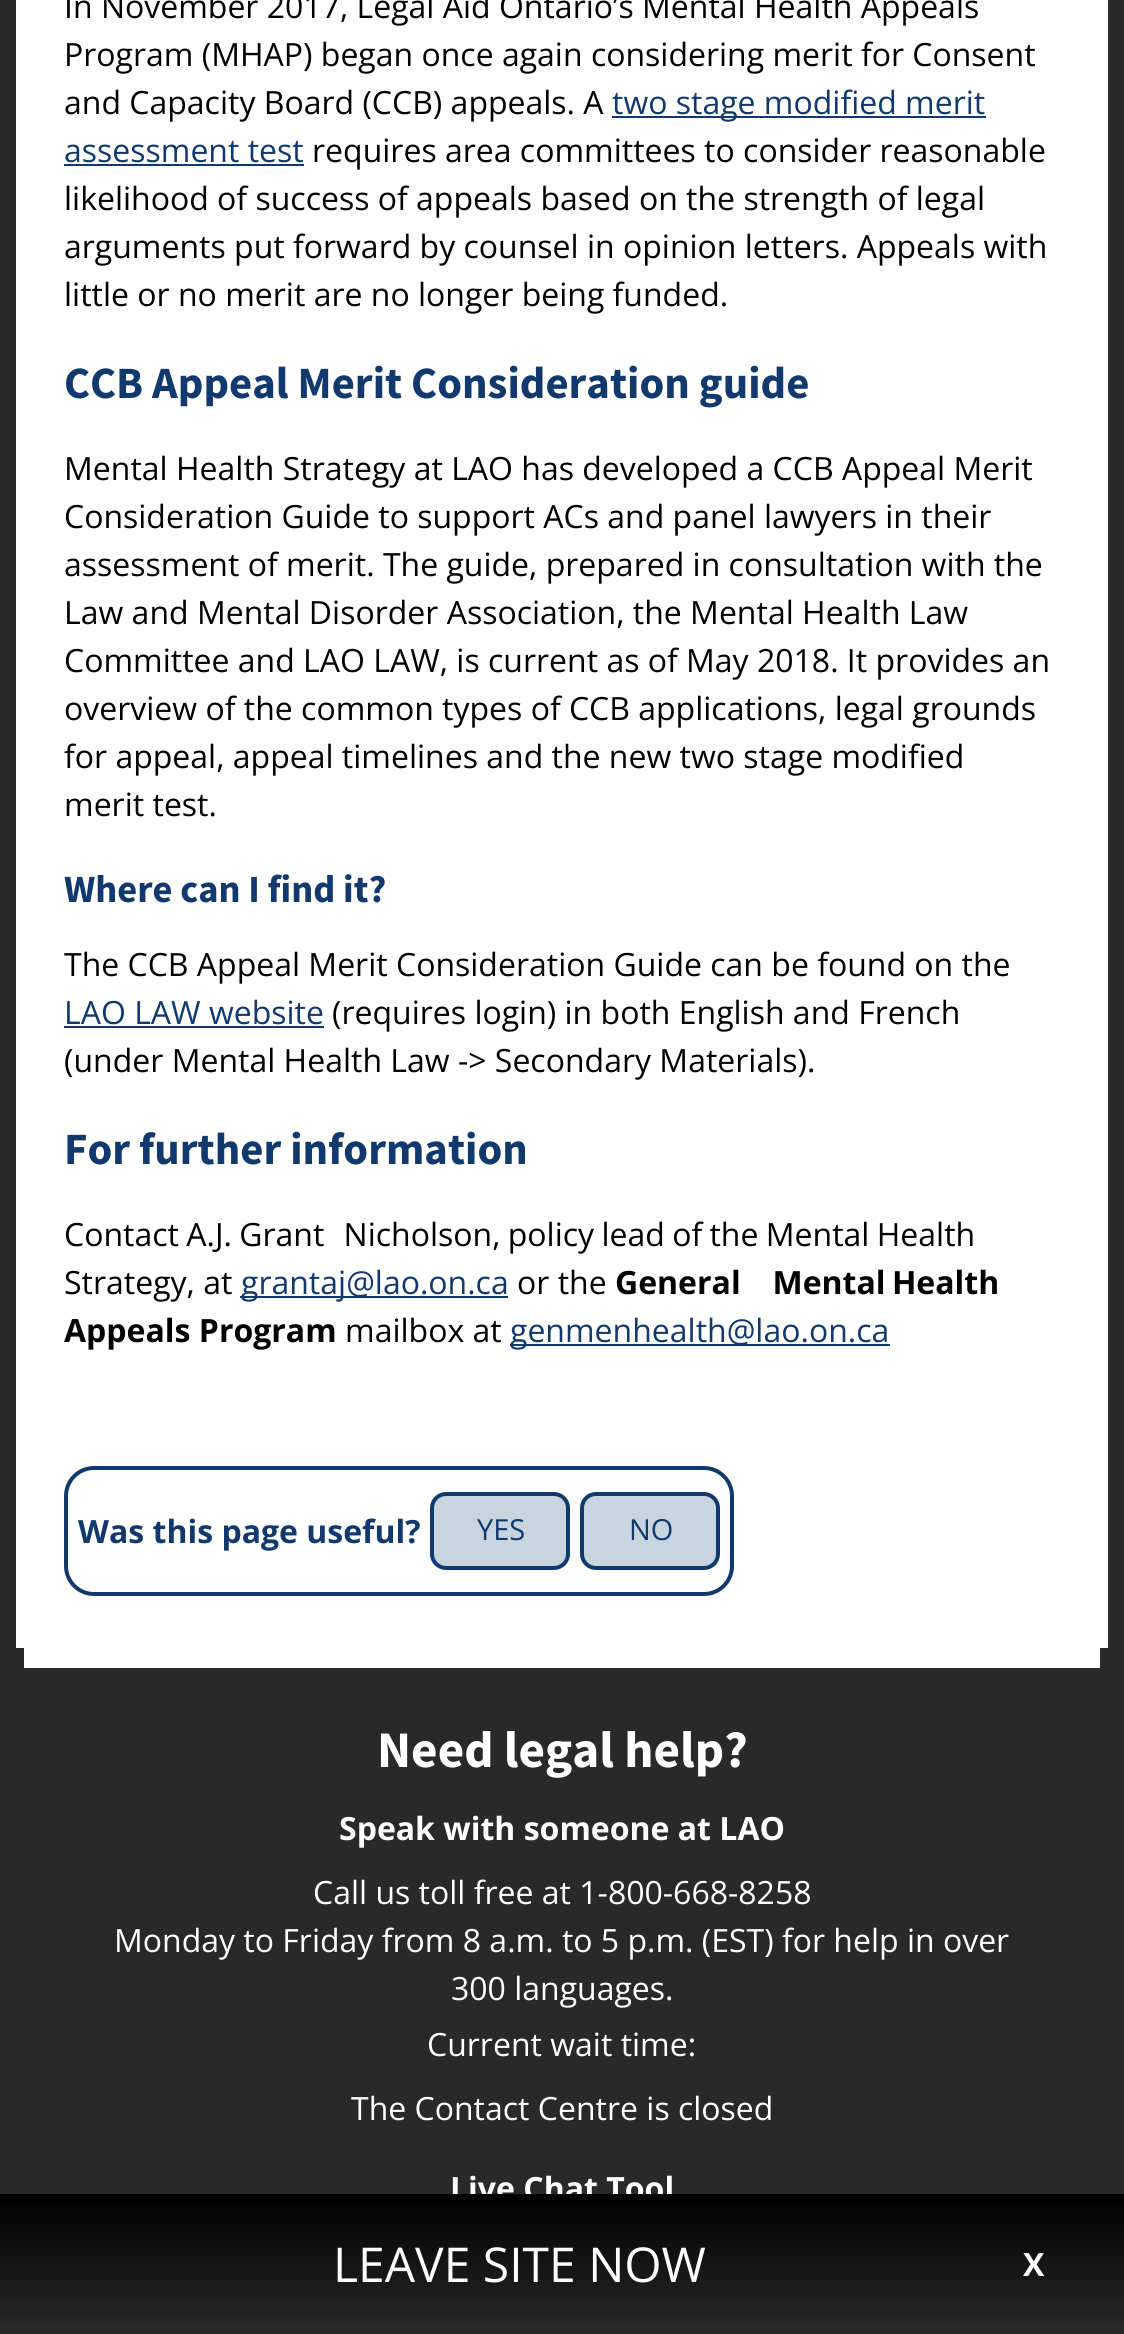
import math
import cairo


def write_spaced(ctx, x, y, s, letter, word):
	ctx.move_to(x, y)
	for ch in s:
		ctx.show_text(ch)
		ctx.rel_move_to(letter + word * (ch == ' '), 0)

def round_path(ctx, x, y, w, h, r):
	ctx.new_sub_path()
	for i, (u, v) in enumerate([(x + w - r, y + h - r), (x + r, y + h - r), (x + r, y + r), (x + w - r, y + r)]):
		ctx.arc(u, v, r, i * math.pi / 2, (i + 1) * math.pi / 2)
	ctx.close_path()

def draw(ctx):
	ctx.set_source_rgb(1, 1, 1)
	ctx.paint()
	ctx.rectangle(8, -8, 1108, 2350)
	ctx.set_source_rgb(0.161, 0.161, 0.161)
	ctx.set_line_width(16)
	ctx.stroke()
	ctx.rectangle(16, 1648, 1092, 546)
	ctx.fill()
	ctx.set_source_rgb(1, 1, 1)
	ctx.rectangle(24, 1648, 1076, 20)
	ctx.fill()
	ctx.select_font_face('Open Sans')
	ctx.set_font_size(32)
	ctx.set_source_rgb(0, 0, 0)
	for x, y, s in [
		(64, 18, 'In November 2017, Legal Aid Ontario’s Mental Health Appeals'),
		(64, 66, 'Program (MHAP) began once again considering merit for Consent'),
		(64, 114, 'and Capacity Board (CCB) appeals. A'),
	]:
		ctx.move_to(x, y)
		ctx.show_text(s)
	ctx.set_source_rgb(0.067, 0.224, 0.431)
	ctx.rectangle(612, 116, 374, 2)
	ctx.fill()
	ctx.move_to(612, 114)
	ctx.show_text('two stage modified merit')
	ctx.move_to(64, 162)
	ctx.show_text('assessment test')
	ctx.rectangle(64, 164, 240, 2)
	ctx.fill()
	ctx.set_source_rgb(0, 0, 0)
	for x, y, s in [
		(312, 162, 'requires area committees to consider reasonable'),
		(64, 210, 'likelihood of success of appeals based on the strength of legal'),
		(64, 258, 'arguments put forward by counsel in opinion letters. Appeals with'),
		(64, 306, 'little or no merit are no longer being funded.'),
	]:
		ctx.move_to(x, y)
		ctx.show_text(s)
	ctx.select_font_face('Source Sans Pro', cairo.FONT_SLANT_NORMAL, cairo.FONT_WEIGHT_BOLD)
	ctx.set_font_size(44.75)
	ctx.set_source_rgb(0.067, 0.224, 0.431)
	ctx.move_to(64, 398)
	ctx.show_text('CCB Appeal Merit Consideration guide')
	ctx.select_font_face('Open Sans')
	ctx.set_font_size(32)
	ctx.set_source_rgb(0, 0, 0)
	for x, y, s in [
		(64, 480, 'Mental Health Strategy at LAO has developed a CCB Appeal Merit'),
		(64, 528, 'Consideration Guide to support ACs and panel lawyers in their'),
		(64, 576, 'assessment of merit. The guide, prepared in consultation with the'),
		(64, 624, 'Law and Mental Disorder Association, the Mental Health Law'),
		(64, 672, 'Committee and LAO LAW, is current as of May 2018. It provides an'),
		(64, 720, 'overview of the common types of CCB applications, legal grounds'),
		(64, 768, 'for appeal, appeal timelines and the new two stage modified'),
		(64, 816, 'merit test.'),
	]:
		ctx.move_to(x, y)
		ctx.show_text(s)
	ctx.select_font_face('Source Sans Pro', cairo.FONT_SLANT_NORMAL, cairo.FONT_WEIGHT_BOLD)
	ctx.set_font_size(38.5)
	ctx.set_source_rgb(0.067, 0.224, 0.431)
	ctx.move_to(64, 902)
	ctx.show_text('Where can I find it?')
	ctx.select_font_face('Open Sans')
	ctx.set_font_size(32)
	ctx.set_source_rgb(0, 0, 0)
	ctx.move_to(64, 976)
	ctx.show_text('The CCB Appeal Merit Consideration Guide can be found on the')
	ctx.set_source_rgb(0.067, 0.224, 0.431)
	ctx.move_to(64, 1024)
	ctx.show_text('LAO LAW website')
	ctx.rectangle(64, 1026, 260, 2)
	ctx.fill()
	ctx.set_source_rgb(0, 0, 0)
	ctx.move_to(332, 1024)
	ctx.show_text('(requires login) in both English and French')
	ctx.move_to(64, 1072)
	ctx.show_text('(under Mental Health Law -> Secondary Materials).')
	ctx.select_font_face('Source Sans Pro', cairo.FONT_SLANT_NORMAL, cairo.FONT_WEIGHT_BOLD)
	ctx.set_font_size(44.75)
	ctx.set_source_rgb(0.067, 0.224, 0.431)
	ctx.move_to(64, 1164)
	ctx.show_text('For further information')
	ctx.select_font_face('Open Sans')
	ctx.set_font_size(32)
	ctx.set_source_rgb(0, 0, 0)
	write_spaced(ctx, 64, 1246, 'Contact A.J. Grant‑Nicholson, policy lead of the Mental Health', 0, -1)
	ctx.move_to(64, 1294)
	ctx.show_text('Strategy, at')
	ctx.set_source_rgb(0.067, 0.224, 0.431)
	ctx.rectangle(240, 1296, 268, 2)
	ctx.fill()
	ctx.move_to(241, 1294)
	ctx.show_text('grantaj@lao.on.ca')
	ctx.set_source_rgb(0, 0, 0)
	ctx.move_to(517, 1294)
	ctx.show_text('or the')
	ctx.select_font_face('Open Sans', cairo.FONT_SLANT_NORMAL, cairo.FONT_WEIGHT_BOLD)
	write_spaced(ctx, 615, 1294, 'General ‑ Mental Health', 0, -2)
	ctx.move_to(64, 1342)
	ctx.show_text('Appeals Program')
	ctx.select_font_face('Open Sans')
	ctx.move_to(345, 1342)
	ctx.show_text('mailbox at')
	ctx.set_source_rgb(0.067, 0.224, 0.431)
	ctx.rectangle(510, 1344, 380, 2)
	ctx.fill()
	ctx.move_to(510, 1342)
	ctx.show_text('genmenhealth@lao.on.ca')
	round_path(ctx, 66, 1468, 666, 126, 28)
	ctx.set_line_width(4)
	ctx.stroke()
	ctx.select_font_face('Open Sans', cairo.FONT_SLANT_NORMAL, cairo.FONT_WEIGHT_BOLD)
	ctx.move_to(78, 1543)
	ctx.show_text('Was this page useful?')
	ctx.set_source_rgb(0.78, 0.835, 0.875)
	round_path(ctx, 432, 1494, 136, 74, 14)
	ctx.fill_preserve()
	ctx.set_source_rgb(0.067, 0.224, 0.431)
	ctx.stroke()
	ctx.select_font_face('Open Sans')
	ctx.set_font_size(29)
	ctx.move_to(477, 1540)
	ctx.show_text('YES')
	ctx.set_source_rgb(0.78, 0.835, 0.875)
	round_path(ctx, 582, 1494, 136, 74, 14)
	ctx.fill_preserve()
	ctx.set_source_rgb(0.067, 0.224, 0.431)
	ctx.stroke()
	ctx.move_to(629, 1540)
	ctx.show_text('NO')
	ctx.select_font_face('Source Sans Pro', cairo.FONT_SLANT_NORMAL, cairo.FONT_WEIGHT_BOLD)
	ctx.set_font_size(51.25)
	ctx.set_source_rgb(1, 1, 1)
	ctx.move_to(377, 1767)
	ctx.show_text('Need legal help?')
	ctx.select_font_face('Open Sans', cairo.FONT_SLANT_NORMAL, cairo.FONT_WEIGHT_BOLD)
	ctx.set_font_size(32)
	ctx.move_to(339, 1840)
	ctx.show_text('Speak with someone at LAO')
	ctx.select_font_face('Open Sans')
	for x, y, s in [
		(313, 1904, 'Call us toll free at 1-800-668-8258'),
		(114, 1952, 'Monday to Friday from 8 a.m. to 5 p.m. (EST) for help in over'),
		(451, 2000, '300 languages.'),
		(427, 2056, 'Current wait time:'),
		(351, 2120, 'The Contact Centre is closed'),
	]:
		ctx.move_to(x, y)
		ctx.show_text(s)
	ctx.select_font_face('Open Sans', cairo.FONT_SLANT_NORMAL, cairo.FONT_WEIGHT_BOLD)
	ctx.move_to(450, 2200)
	ctx.show_text('Live Chat Tool')
	gradient = cairo.LinearGradient(562, 2194, 562, 2334)
	gradient.add_color_stop_rgba(0, 0, 0, 0, 1)
	gradient.add_color_stop_rgba(1, 0.161, 0.161, 0.161, 1)
	ctx.set_source(gradient)
	ctx.rectangle(0, 2194, 1124, 140)
	ctx.fill()
	ctx.select_font_face('Open Sans')
	ctx.set_font_size(48)
	ctx.set_source_rgb(1, 1, 1)
	ctx.move_to(333, 2282)
	ctx.show_text('LEAVE SITE NOW')
	ctx.select_font_face('Open Sans', cairo.FONT_SLANT_NORMAL, cairo.FONT_WEIGHT_BOLD)
	ctx.set_font_size(32)
	ctx.move_to(1023, 2276)
	ctx.show_text('X')


surface = cairo.ImageSurface(cairo.FORMAT_RGB24, 1124, 2334)
ctx = cairo.Context(surface)
options = cairo.FontOptions()
options.set_hint_metrics(cairo.HINT_METRICS_OFF)
options.set_hint_style(cairo.HINT_STYLE_NONE)
ctx.set_font_options(options)
ctx.set_miter_limit(4)
draw(ctx)
surface.write_to_png('image.png')
